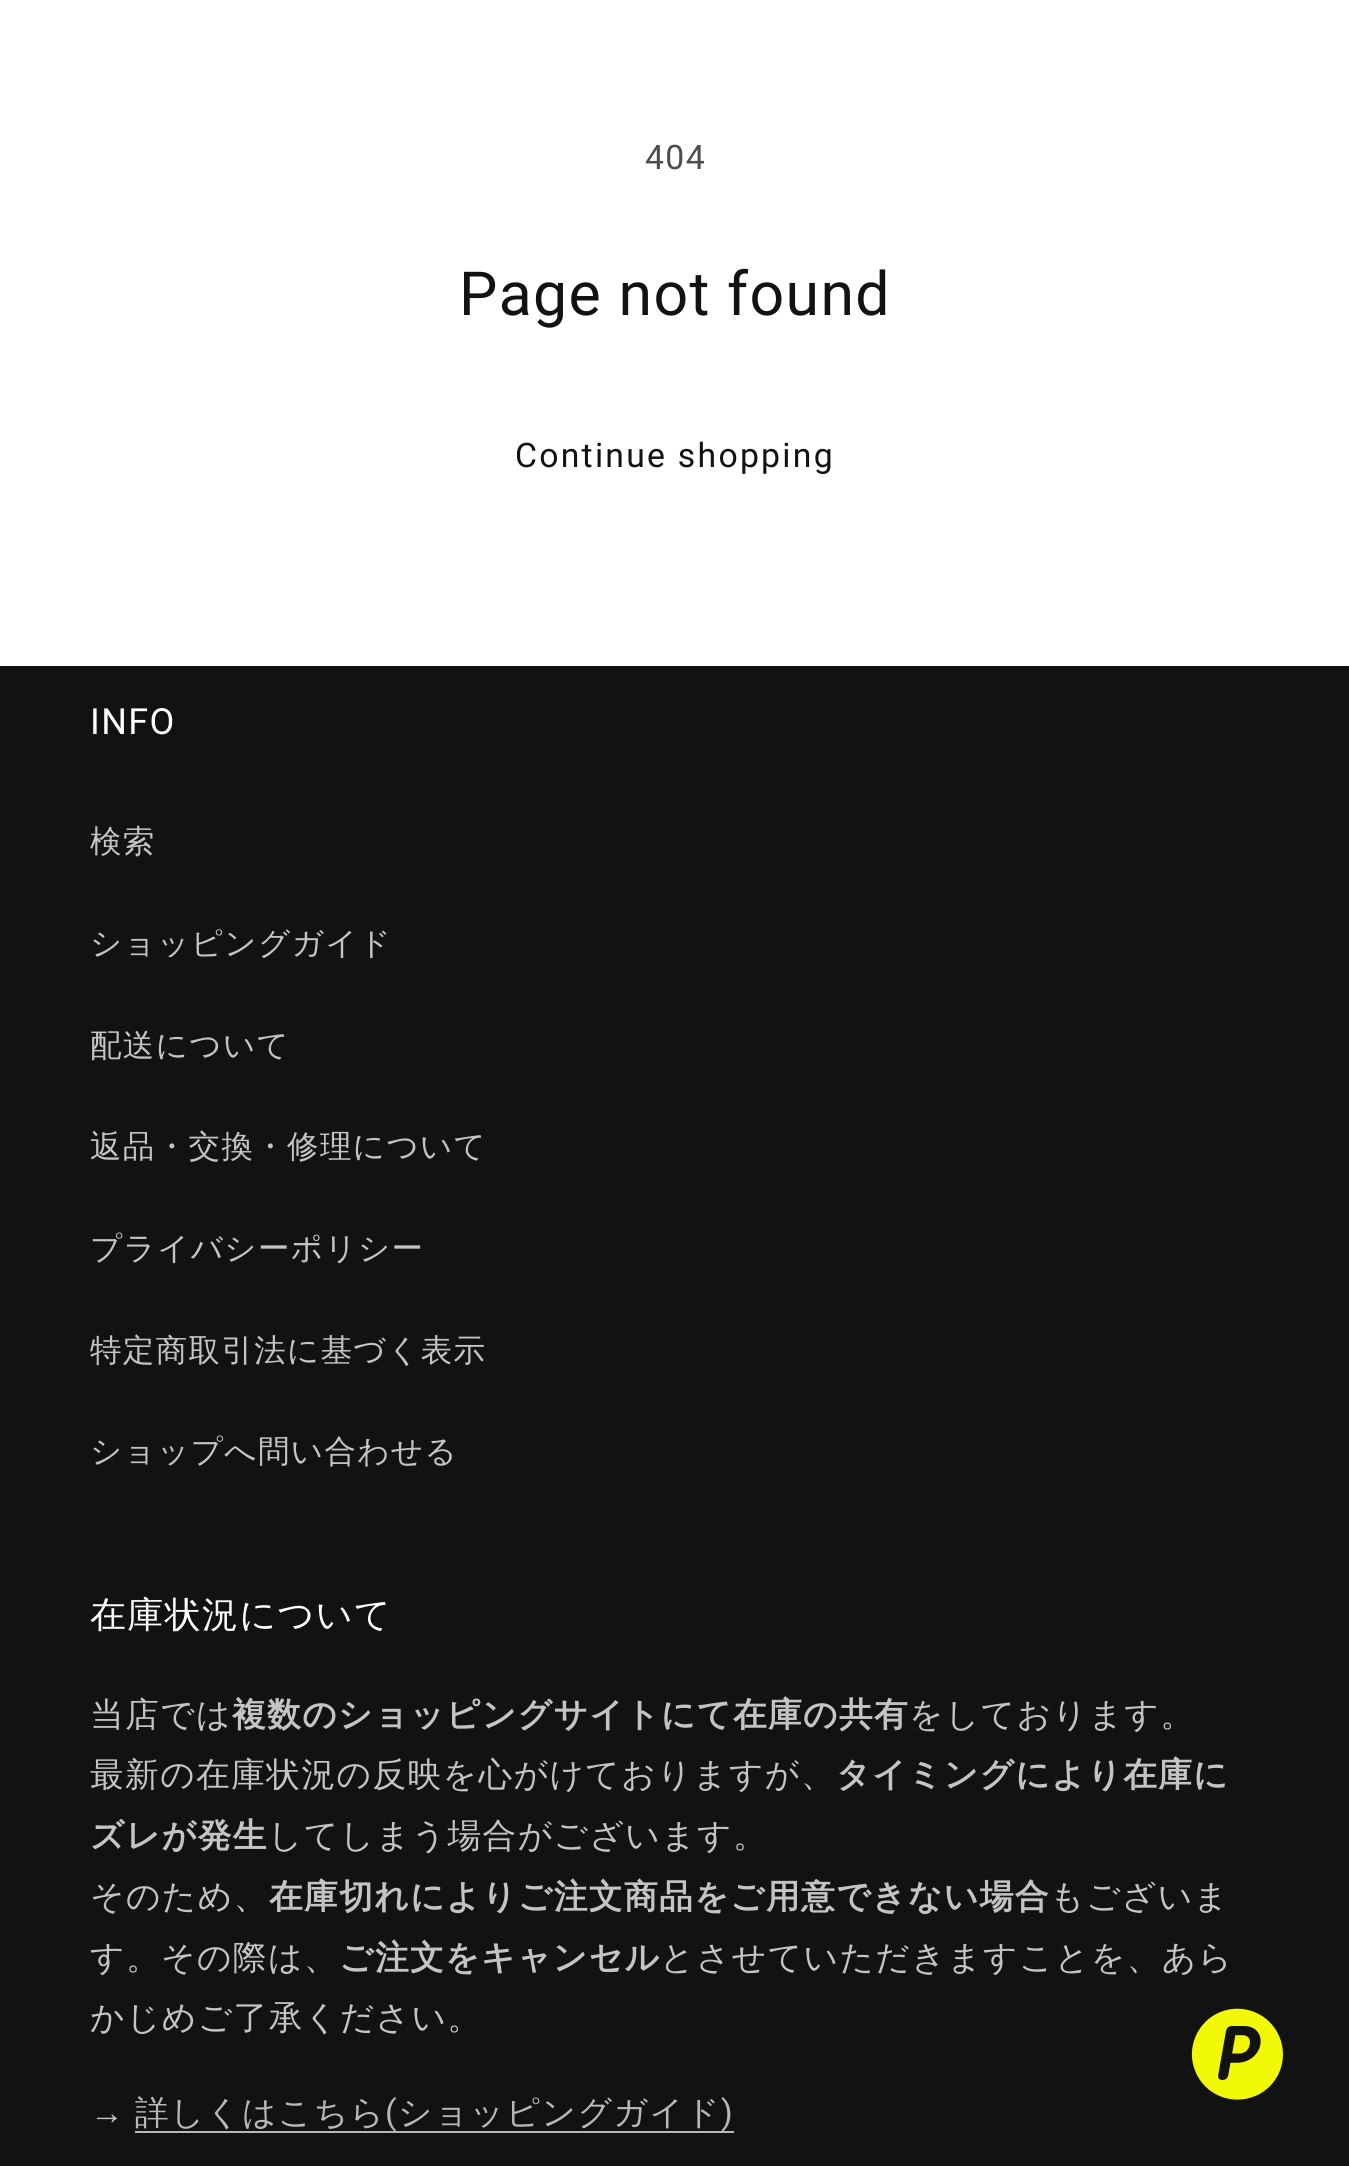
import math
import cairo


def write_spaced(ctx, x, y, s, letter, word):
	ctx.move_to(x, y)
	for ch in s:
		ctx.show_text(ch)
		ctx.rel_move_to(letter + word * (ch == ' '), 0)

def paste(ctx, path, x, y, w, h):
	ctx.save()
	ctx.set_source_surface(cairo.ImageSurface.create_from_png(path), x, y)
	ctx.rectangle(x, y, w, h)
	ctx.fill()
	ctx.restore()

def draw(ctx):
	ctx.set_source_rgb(1, 1, 1)
	ctx.paint()
	ctx.select_font_face('Roboto')
	ctx.set_font_size(33.75)
	ctx.set_source_rgb(0.302, 0.302, 0.302)
	write_spaced(ctx, 645, 169, '404', 1.35, 0)
	ctx.set_font_size(60.75)
	ctx.set_source_rgb(0.071, 0.071, 0.071)
	write_spaced(ctx, 459, 315, 'Page not found', 1.35, 0)
	ctx.set_font_size(33.75)
	write_spaced(ctx, 515, 467, 'Continue shopping', 2.25, 0)
	ctx.rectangle(0, 666, 1349, 1500)
	ctx.fill()
	ctx.set_font_size(36)
	ctx.set_source_rgb(1, 1, 1)
	write_spaced(ctx, 90, 734, 'INFO', 1.35, 0)
	ctx.select_font_face('WenQuanYi Zen Hei Medium')
	ctx.set_font_size(31.5)
	ctx.set_source_rgb(0.769, 0.769, 0.769)
	for x, y, s in [
		(90, 852, '検索'),
		(90, 954, 'ショッピングガイド'),
		(90, 1056, '配送について'),
		(90, 1157, '返品・交換・修理について'),
		(90, 1259, 'プライバシーポリシー'),
		(90, 1361, '特定商取引法に基づく表示'),
		(90, 1462, 'ショップへ問い合わせる'),
	]:
		write_spaced(ctx, x, y, s, 1.35, 0)
	ctx.set_font_size(36)
	ctx.set_source_rgb(1, 1, 1)
	write_spaced(ctx, 90, 1627, '在庫状況について', 1.35, 0)
	ctx.set_font_size(33.75)
	ctx.set_source_rgb(0.769, 0.769, 0.769)
	write_spaced(ctx, 90, 1726, '当店では', 1.35, 0)
	ctx.select_font_face('WenQuanYi Zen Hei', cairo.FONT_SLANT_NORMAL, cairo.FONT_WEIGHT_BOLD)
	write_spaced(ctx, 232, 1726, '複数のショッピングサイトにて在庫の共有', 1.35, 0)
	ctx.select_font_face('WenQuanYi Zen Hei Medium')
	write_spaced(ctx, 909, 1726, 'をしております。', 1.35, 0)
	write_spaced(ctx, 90, 1786, '最新の在庫状況の反映を心がけておりますが、', 1.35, 0)
	ctx.select_font_face('WenQuanYi Zen Hei', cairo.FONT_SLANT_NORMAL, cairo.FONT_WEIGHT_BOLD)
	write_spaced(ctx, 836, 1786, 'タイミングにより在庫に', 1.35, 0)
	write_spaced(ctx, 90, 1847, 'ズレが発生', 1.35, 0)
	ctx.select_font_face('WenQuanYi Zen Hei Medium')
	write_spaced(ctx, 268, 1847, 'してしまう場合がございます。', 1.35, 0)
	write_spaced(ctx, 90, 1908, 'そのため、', 1.35, 0)
	ctx.select_font_face('WenQuanYi Zen Hei', cairo.FONT_SLANT_NORMAL, cairo.FONT_WEIGHT_BOLD)
	write_spaced(ctx, 269, 1908, '在庫切れによりご注文商品をご用意できない場合', 1.35, 0)
	ctx.select_font_face('WenQuanYi Zen Hei Medium')
	write_spaced(ctx, 1050, 1908, 'もございま', 1.35, 0)
	write_spaced(ctx, 90, 1969, 'す。その際は、', 1.35, 0)
	ctx.select_font_face('WenQuanYi Zen Hei', cairo.FONT_SLANT_NORMAL, cairo.FONT_WEIGHT_BOLD)
	write_spaced(ctx, 339, 1969, 'ご注文をキャンセル', 1.35, 0)
	ctx.select_font_face('WenQuanYi Zen Hei Medium')
	write_spaced(ctx, 660, 1969, 'とさせていただきますことを、あら', 1.35, 0)
	write_spaced(ctx, 90, 2029, 'かじめご了承ください。', 1.35, 0)
	ctx.select_font_face('Liberation Sans')
	write_spaced(ctx, 90, 2124, '→', 1.35, 0)
	ctx.select_font_face('WenQuanYi Zen Hei Medium')
	ctx.set_source_rgb(0.722, 0.722, 0.722)
	write_spaced(ctx, 135, 2124, '詳しくはこちら', 1.35, 0)
	ctx.rectangle(135, 2131, 599, 2)
	ctx.fill()
	ctx.select_font_face('Roboto')
	write_spaced(ctx, 385, 2124, '(', 1.35, 0)
	ctx.select_font_face('WenQuanYi Zen Hei Medium')
	write_spaced(ctx, 398, 2124, 'ショッピングガイド', 1.35, 0)
	ctx.select_font_face('Roboto')
	write_spaced(ctx, 721, 2124, ')', 1.35, 0)
	paste(ctx, 'media/1.png', 1191, 2008, 92, 92)


surface = cairo.ImageSurface(cairo.FORMAT_RGB24, 1349, 2166)
ctx = cairo.Context(surface)
options = cairo.FontOptions()
options.set_hint_metrics(cairo.HINT_METRICS_OFF)
options.set_hint_style(cairo.HINT_STYLE_NONE)
ctx.set_font_options(options)
ctx.set_miter_limit(4)
draw(ctx)
surface.write_to_png('image.png')
